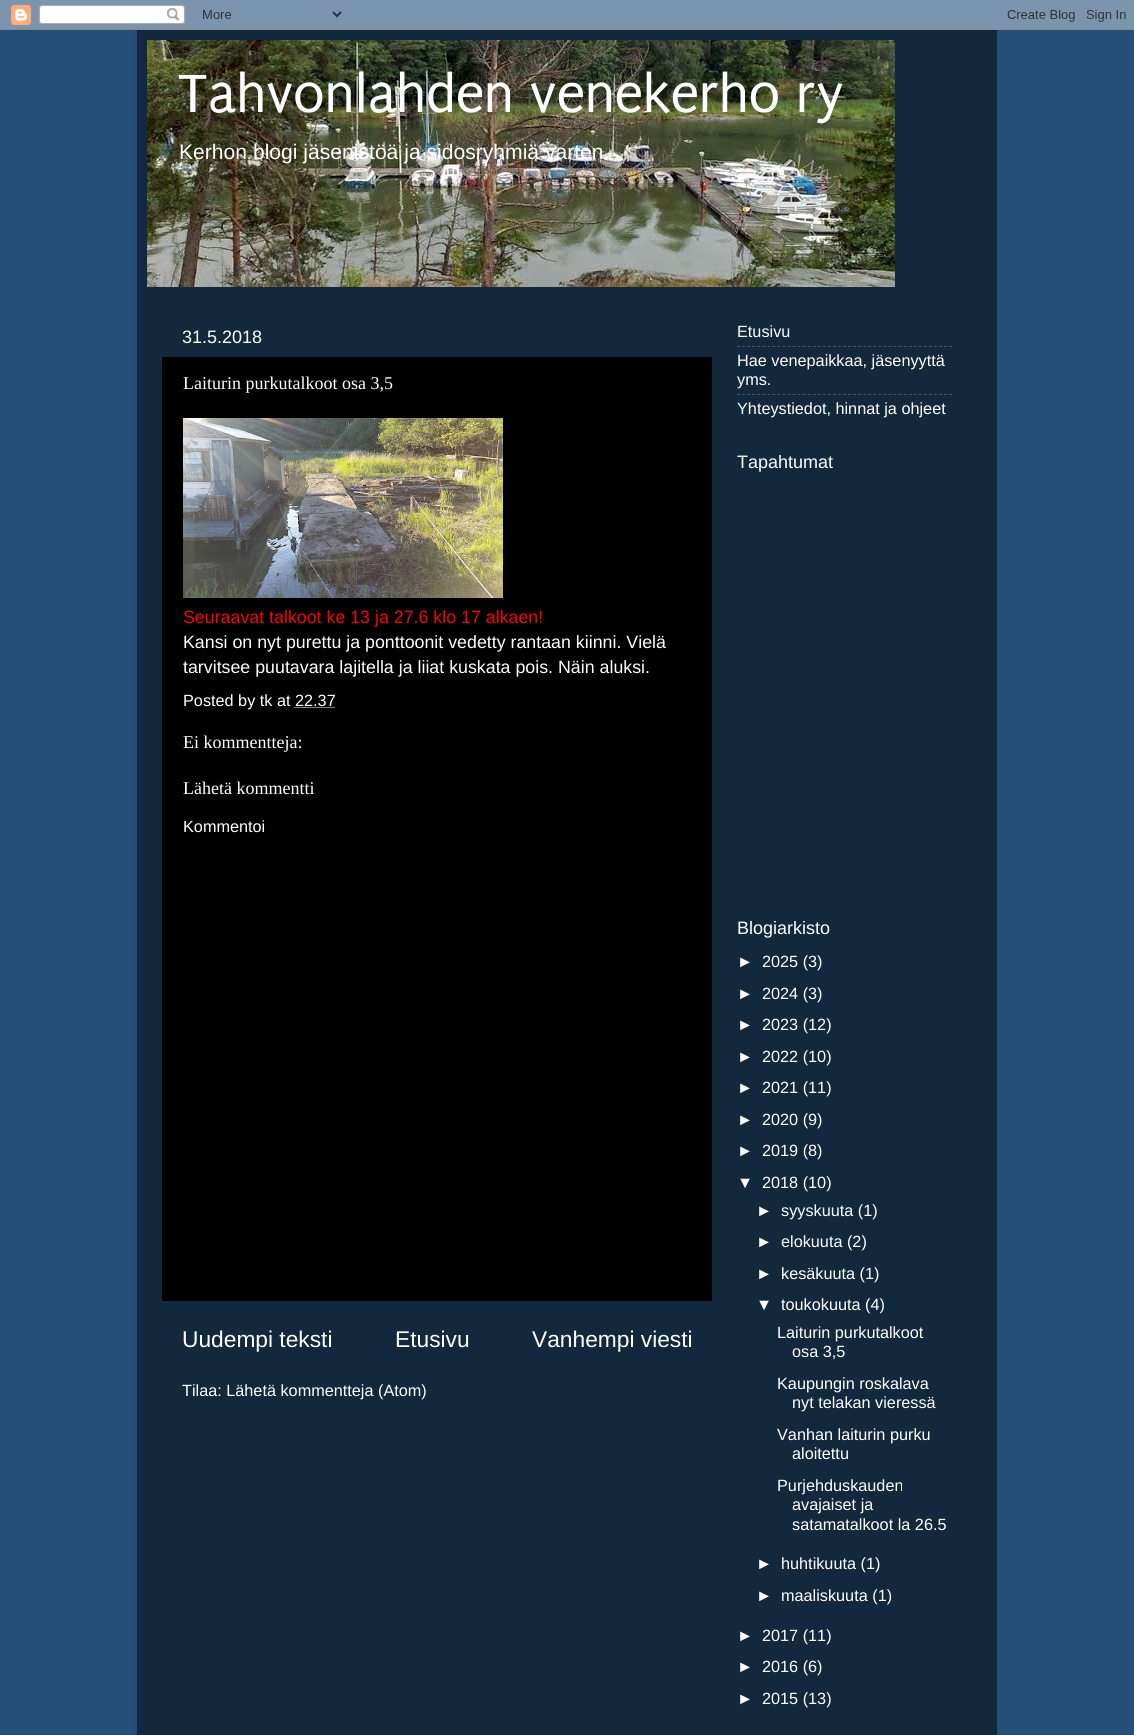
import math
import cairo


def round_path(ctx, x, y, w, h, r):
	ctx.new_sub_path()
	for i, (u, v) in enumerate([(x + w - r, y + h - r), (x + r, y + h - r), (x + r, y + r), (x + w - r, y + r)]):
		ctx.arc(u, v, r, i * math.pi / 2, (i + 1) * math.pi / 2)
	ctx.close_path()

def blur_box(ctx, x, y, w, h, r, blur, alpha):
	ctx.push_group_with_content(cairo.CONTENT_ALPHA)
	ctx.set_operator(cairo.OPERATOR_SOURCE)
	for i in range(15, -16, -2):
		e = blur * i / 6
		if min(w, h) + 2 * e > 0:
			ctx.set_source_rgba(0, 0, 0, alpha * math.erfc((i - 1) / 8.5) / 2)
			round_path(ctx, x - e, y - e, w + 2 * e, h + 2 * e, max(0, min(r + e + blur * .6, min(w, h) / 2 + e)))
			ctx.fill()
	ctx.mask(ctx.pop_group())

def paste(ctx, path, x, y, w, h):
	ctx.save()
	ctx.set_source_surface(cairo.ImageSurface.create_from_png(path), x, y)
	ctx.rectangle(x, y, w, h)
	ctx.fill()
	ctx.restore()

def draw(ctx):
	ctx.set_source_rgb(0.145, 0.306, 0.475)
	ctx.paint()
	ctx.set_source_rgb(0, 0, 0)
	blur_box(ctx, 137, 30, 860, 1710, 0, 1.5, 0.15)
	paste(ctx, 'media/1.png', 0, 0, 1134, 30)
	ctx.set_source_rgb(0.071, 0.157, 0.239)
	ctx.rectangle(137, 30, 860, 1705)
	ctx.fill()
	paste(ctx, 'media/2.png', 147, 40, 748, 247)
	ctx.select_font_face('Puritan')
	ctx.set_font_size(58)
	ctx.set_source_rgb(1, 1, 1)
	ctx.move_to(177, 112)
	ctx.show_text('Tahvonlahden venekerho ry')
	ctx.select_font_face('Liberation Sans')
	ctx.set_font_size(21.1)
	ctx.move_to(179, 159)
	ctx.show_text('Kerhon blogi jäsenistöä ja sidosryhmiä varten.')
	ctx.set_font_size(18)
	ctx.move_to(182, 343)
	ctx.show_text('31.5.2018')
	ctx.set_source_rgb(0, 0, 0)
	ctx.rectangle(162, 357, 550, 944)
	ctx.fill()
	ctx.select_font_face('Liberation Serif')
	ctx.set_source_rgb(1, 1, 1)
	ctx.move_to(183, 389)
	ctx.show_text('Laiturin purkutalkoot osa 3,5')
	paste(ctx, 'media/3.png', 183, 418, 320, 180)
	ctx.select_font_face('Liberation Sans')
	ctx.set_font_size(17.8)
	ctx.set_source_rgb(1, 0, 0)
	ctx.move_to(183, 623)
	ctx.show_text('Seuraavat talkoot ke 13 ja 27.6 klo 17 alkaen!')
	ctx.set_source_rgb(1, 1, 1)
	ctx.move_to(183, 648)
	ctx.show_text('Kansi on nyt purettu ja ponttoonit vedetty rantaan kiinni. Vielä')
	ctx.move_to(183, 673)
	ctx.show_text('tarvitsee puutavara lajitella ja liiat kuskata pois. Näin aluksi.')
	ctx.set_font_size(16.25)
	ctx.move_to(183, 706)
	ctx.show_text('Posted by tk at 22.37')
	ctx.new_path()
	ctx.move_to(294.5, 707.5)
	ctx.line_to(335, 707.5)
	ctx.set_line_width(1)
	ctx.set_dash([1, 1])
	ctx.stroke()
	ctx.select_font_face('Liberation Serif')
	ctx.set_font_size(18)
	ctx.move_to(183, 748)
	ctx.show_text('Ei kommentteja:')
	ctx.move_to(183, 794)
	ctx.show_text('Lähetä kommentti')
	ctx.select_font_face('Liberation Sans')
	ctx.set_font_size(16.25)
	ctx.move_to(183, 832)
	ctx.show_text('Kommentoi')
	ctx.set_font_size(22.75)
	for x, y, s in [
		(182, 1347, 'Uudempi teksti'),
		(395, 1347, 'Etusivu'),
		(532, 1347, 'Vanhempi viesti'),
	]:
		ctx.move_to(x, y)
		ctx.show_text(s)
	ctx.set_font_size(16.25)
	ctx.move_to(182, 1396)
	ctx.show_text('Tilaa: Lähetä kommentteja (Atom)')
	ctx.move_to(737, 337)
	ctx.show_text('Etusivu')
	ctx.new_path()
	ctx.move_to(737, 346.5)
	ctx.line_to(952, 346.5)
	ctx.set_source_rgb(0.286, 0.329, 0.373)
	ctx.set_dash([3, 2.05])
	ctx.stroke()
	ctx.set_source_rgb(1, 1, 1)
	ctx.move_to(737, 366)
	ctx.show_text('Hae venepaikkaa, jäsenyyttä')
	ctx.move_to(737, 385)
	ctx.show_text('yms.')
	ctx.new_path()
	ctx.move_to(737, 394.5)
	ctx.line_to(952, 394.5)
	ctx.set_source_rgb(0.286, 0.329, 0.373)
	ctx.stroke()
	ctx.set_source_rgb(1, 1, 1)
	ctx.move_to(737, 414)
	ctx.show_text('Yhteystiedot, hinnat ja ohjeet')
	ctx.set_font_size(18)
	ctx.move_to(737, 468)
	ctx.show_text('Tapahtumat')
	ctx.move_to(737, 934)
	ctx.show_text('Blogiarkisto')
	ctx.set_font_size(16.25)
	for x, y, s in [
		(737, 967, '►'),
		(762, 967, '2025 (3)'),
		(737, 999, '►'),
		(762, 999, '2024 (3)'),
		(737, 1030, '►'),
		(762, 1030, '2023 (12)'),
		(737, 1062, '►'),
		(762, 1062, '2022 (10)'),
		(737, 1093, '►'),
		(762, 1093, '2021 (11)'),
		(737, 1125, '►'),
		(762, 1125, '2020 (9)'),
		(737, 1156, '►'),
		(762, 1156, '2019 (8)'),
		(737, 1188, '▼'),
		(762, 1188, '2018 (10)'),
		(756, 1216, '►'),
		(781, 1216, 'syyskuuta (1)'),
		(756, 1247, '►'),
		(781, 1247, 'elokuuta (2)'),
		(756, 1279, '►'),
		(781, 1279, 'kesäkuuta (1)'),
		(756, 1310, '▼'),
		(781, 1310, 'toukokuuta (4)'),
		(777, 1338, 'Laiturin purkutalkoot'),
		(792, 1357, 'osa 3,5'),
		(777, 1389, 'Kaupungin roskalava'),
		(792, 1408, 'nyt telakan vieressä'),
		(777, 1440, 'Vanhan laiturin purku'),
		(792, 1459, 'aloitettu'),
		(777, 1491, 'Purjehduskauden'),
		(792, 1510, 'avajaiset ja'),
		(792, 1530, 'satamatalkoot la 26.5'),
		(756, 1569, '►'),
		(781, 1569, 'huhtikuuta (1)'),
		(756, 1601, '►'),
		(781, 1601, 'maaliskuuta (1)'),
		(737, 1641, '►'),
		(762, 1641, '2017 (11)'),
		(737, 1672, '►'),
		(762, 1672, '2016 (6)'),
		(737, 1704, '►'),
		(762, 1704, '2015 (13)'),
	]:
		ctx.move_to(x, y)
		ctx.show_text(s)


surface = cairo.ImageSurface(cairo.FORMAT_RGB24, 1134, 1735)
ctx = cairo.Context(surface)
options = cairo.FontOptions()
options.set_hint_metrics(cairo.HINT_METRICS_OFF)
options.set_hint_style(cairo.HINT_STYLE_NONE)
ctx.set_font_options(options)
ctx.set_miter_limit(4)
draw(ctx)
surface.write_to_png('image.png')
